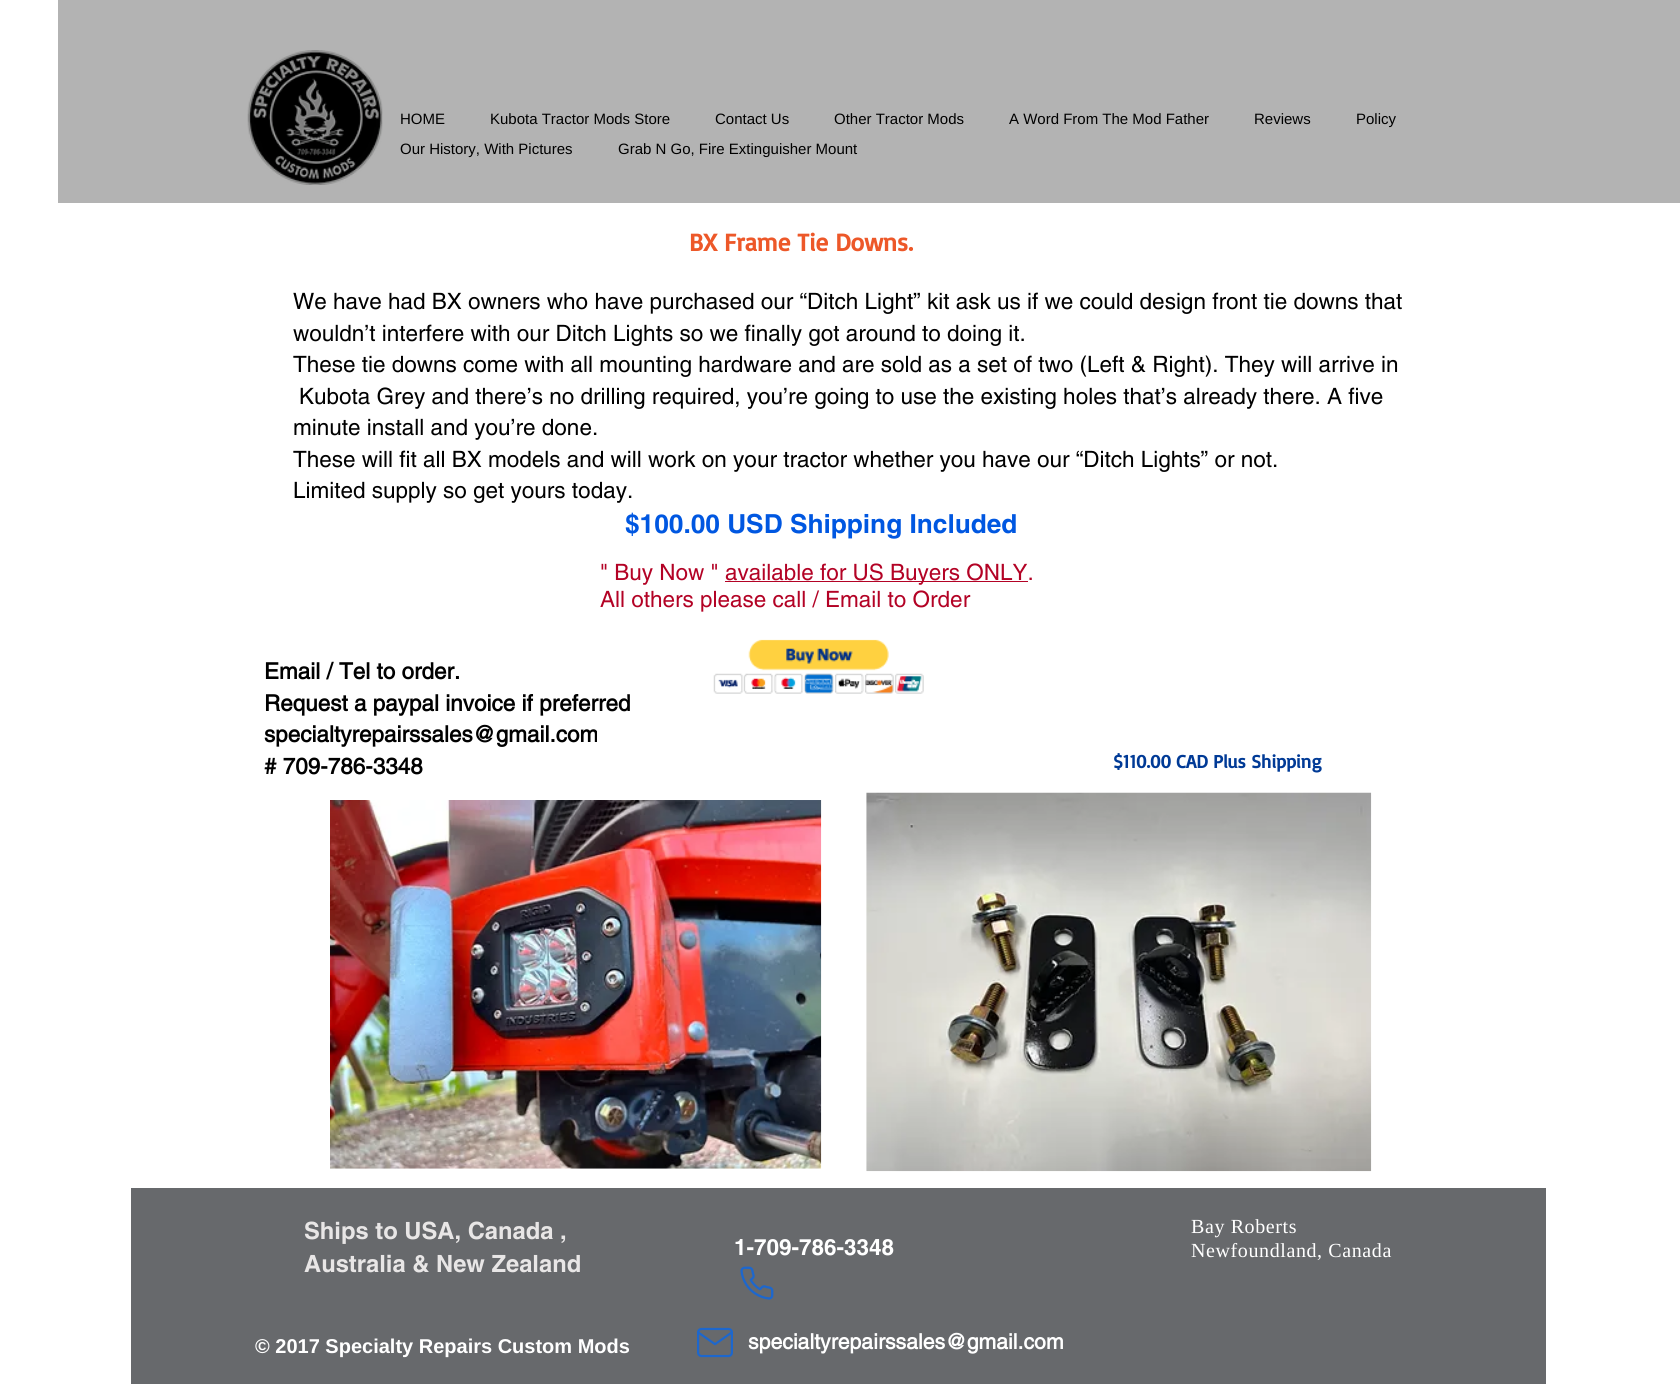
import math
import cairo


def write_spaced(ctx, x, y, s, letter, word):
	ctx.move_to(x, y)
	for ch in s:
		ctx.show_text(ch)
		ctx.rel_move_to(letter + word * (ch == ' '), 0)

def paste(ctx, path, x, y, w, h):
	ctx.save()
	ctx.set_source_surface(cairo.ImageSurface.create_from_png(path), x, y)
	ctx.rectangle(x, y, w, h)
	ctx.fill()
	ctx.restore()

def draw(ctx):
	ctx.set_source_rgb(1, 1, 1)
	ctx.paint()
	ctx.set_source_rgb(0.702, 0.702, 0.702)
	ctx.rectangle(58, 0, 1622, 203)
	ctx.fill()
	paste(ctx, 'media/1.png', 247, 50, 136, 135)
	ctx.select_font_face('Liberation Sans')
	ctx.set_font_size(15)
	ctx.set_source_rgb(0, 0, 0)
	for x, y, s in [
		(400, 124, 'HOME'),
		(490, 124, 'Kubota Tractor Mods Store'),
		(715, 124, 'Contact Us'),
		(834, 124, 'Other Tractor Mods'),
		(1009, 124, 'A Word From The Mod Father'),
		(1254, 124, 'Reviews'),
		(1356, 124, 'Policy'),
		(400, 154, 'Our History, With Pictures'),
		(618, 154, 'Grab N Go, Fire Extinguisher Mount'),
	]:
		ctx.move_to(x, y)
		ctx.show_text(s)
	ctx.select_font_face('Basic', cairo.FONT_SLANT_NORMAL, cairo.FONT_WEIGHT_BOLD)
	ctx.set_font_size(25)
	ctx.set_source_rgb(0.929, 0.345, 0.161)
	ctx.move_to(689, 251)
	ctx.show_text('BX Frame Tie Downs.')
	ctx.select_font_face('helvetica')
	ctx.set_font_size(22.5)
	ctx.set_source_rgb(0, 0, 0)
	for x, y, s in [
		(293, 309, 'We have had BX owners who have purchased our “Ditch Light” kit ask us if we could design front tie downs that'),
		(293, 341, 'wouldn’t interfere with our Ditch Lights so we finally got around to doing it.'),
		(293, 372, 'These tie downs come with all mounting hardware and are sold as a set of two (Left & Right). They will arrive in'),
		(299, 404, 'Kubota Grey and there’s no drilling required, you’re going to use the existing holes that’s already there. A five'),
		(293, 435, 'minute install and you’re done.'),
		(293, 467, 'These will fit all BX models and will work on your tractor whether you have our “Ditch Lights” or not.'),
		(293, 498, 'Limited supply so get yours today.'),
	]:
		ctx.move_to(x, y)
		ctx.show_text(s)
	ctx.select_font_face('helvetica', cairo.FONT_SLANT_NORMAL, cairo.FONT_WEIGHT_BOLD)
	ctx.set_font_size(26.25)
	ctx.set_source_rgb(0, 0.341, 0.882)
	ctx.move_to(625, 533)
	ctx.show_text('$100.00 USD Shipping Included')
	ctx.select_font_face('helvetica')
	ctx.set_font_size(22.5)
	ctx.set_source_rgb(0.702, 0.008, 0.145)
	ctx.move_to(600, 580)
	ctx.show_text('" Buy Now "')
	ctx.rectangle(725, 581, 303, 1)
	ctx.fill()
	ctx.move_to(725, 580)
	ctx.show_text('available for US Buyers ONLY.')
	ctx.move_to(600, 607)
	ctx.show_text('All others please call / Email to Order')
	ctx.select_font_face('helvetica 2', cairo.FONT_SLANT_NORMAL, cairo.FONT_WEIGHT_BOLD)
	ctx.set_source_rgb(0, 0, 0)
	for x, y, s in [
		(264, 679, 'Email / Tel to order.'),
		(264, 711, 'Request a paypal invoice if preferred'),
		(264, 742, 'specialtyrepairssales@gmail.com'),
		(264, 774, '# 709-786-3348'),
	]:
		ctx.move_to(x, y)
		ctx.show_text(s)
	paste(ctx, 'media/2.png', 713, 639, 211, 55)
	ctx.select_font_face('Basic', cairo.FONT_SLANT_NORMAL, cairo.FONT_WEIGHT_BOLD)
	ctx.set_font_size(18.75)
	ctx.set_source_rgb(0, 0.227, 0.588)
	ctx.move_to(1113, 768)
	ctx.show_text('$110.00 CAD Plus Shipping')
	paste(ctx, 'media/3.png', 330, 800, 492, 369)
	paste(ctx, 'media/4.png', 866, 792, 506, 380)
	ctx.set_source_rgb(0.404, 0.412, 0.424)
	ctx.rectangle(131, 1188, 1415, 196)
	ctx.fill()
	ctx.select_font_face('helvetica', cairo.FONT_SLANT_NORMAL, cairo.FONT_WEIGHT_BOLD)
	ctx.set_font_size(23.75)
	ctx.set_source_rgb(0.91, 0.902, 0.902)
	ctx.move_to(304, 1239)
	ctx.show_text('Ships to USA, Canada ,')
	ctx.move_to(304, 1272)
	ctx.show_text('Australia & New Zealand')
	ctx.set_font_size(22.5)
	ctx.set_source_rgb(1, 1, 1)
	ctx.move_to(734, 1255)
	ctx.show_text('1-709-786-3348')
	ctx.select_font_face('Liberation Serif')
	ctx.set_font_size(20)
	write_spaced(ctx, 1191, 1233, 'Bay Roberts', 0.6, 0)
	write_spaced(ctx, 1191, 1257, 'Newfoundland, Canada', 0.6, 0)
	paste(ctx, 'media/5.png', 740, 1266, 34, 34)
	ctx.select_font_face('Liberation Sans', cairo.FONT_SLANT_NORMAL, cairo.FONT_WEIGHT_BOLD)
	ctx.move_to(255, 1353)
	ctx.show_text('© 2017 Specialty Repairs Custom Mods')
	paste(ctx, 'media/6.png', 697, 1327, 36, 31)
	ctx.select_font_face('helvetica 2', cairo.FONT_SLANT_NORMAL, cairo.FONT_WEIGHT_BOLD)
	ctx.set_font_size(21.25)
	ctx.move_to(748, 1349)
	ctx.show_text('specialtyrepairssales@gmail.com')


surface = cairo.ImageSurface(cairo.FORMAT_RGB24, 1680, 1397)
ctx = cairo.Context(surface)
options = cairo.FontOptions()
options.set_hint_metrics(cairo.HINT_METRICS_OFF)
options.set_hint_style(cairo.HINT_STYLE_NONE)
ctx.set_font_options(options)
ctx.set_miter_limit(4)
draw(ctx)
surface.write_to_png('image.png')
